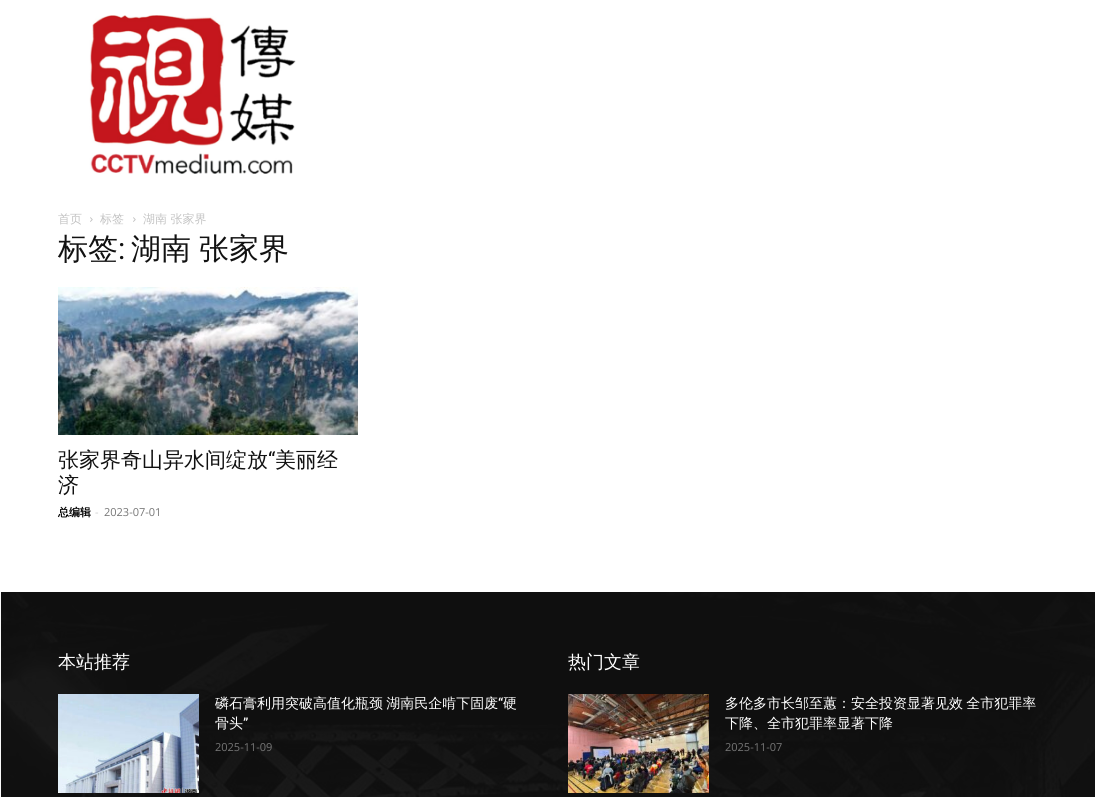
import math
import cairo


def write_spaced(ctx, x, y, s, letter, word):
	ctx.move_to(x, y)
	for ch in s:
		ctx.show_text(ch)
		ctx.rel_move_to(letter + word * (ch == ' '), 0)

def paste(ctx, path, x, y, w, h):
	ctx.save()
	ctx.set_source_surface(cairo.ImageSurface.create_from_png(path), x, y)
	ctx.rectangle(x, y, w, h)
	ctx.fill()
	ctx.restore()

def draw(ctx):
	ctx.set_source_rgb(1, 1, 1)
	ctx.paint()
	paste(ctx, 'media/1.png', 89, 15, 207, 159)
	ctx.select_font_face('WenQuanYi Zen Hei Medium')
	ctx.set_font_size(12)
	ctx.set_source_rgb(0.765, 0.765, 0.765)
	ctx.move_to(58, 223)
	ctx.show_text('首页')
	paste(ctx, 'media/2.png', 90, 217, 3, 5)
	ctx.move_to(100, 223)
	ctx.show_text('标签')
	paste(ctx, 'media/2.png', 133, 217, 3, 5)
	ctx.move_to(143, 223)
	ctx.show_text('湖南 张家界')
	ctx.set_font_size(30)
	ctx.set_source_rgb(0.067, 0.067, 0.067)
	ctx.move_to(58, 259)
	ctx.show_text('标签')
	ctx.select_font_face('Roboto')
	ctx.move_to(118, 259)
	ctx.show_text(':')
	ctx.select_font_face('WenQuanYi Zen Hei Medium')
	write_spaced(ctx, 131, 259, '湖南 张家界', 0, -1)
	paste(ctx, 'media/3.png', 58, 287, 300, 148)
	ctx.set_font_size(21)
	ctx.move_to(58, 467)
	ctx.show_text('张家界奇山异水间绽放')
	ctx.select_font_face('Roboto')
	ctx.move_to(268, 467)
	ctx.show_text('“')
	ctx.select_font_face('WenQuanYi Zen Hei Medium')
	ctx.move_to(275, 467)
	ctx.show_text('美丽经')
	ctx.move_to(58, 492)
	ctx.show_text('济')
	ctx.select_font_face('WenQuanYi Zen Hei', cairo.FONT_SLANT_NORMAL, cairo.FONT_WEIGHT_BOLD)
	ctx.set_font_size(11)
	ctx.set_source_rgb(0, 0, 0)
	ctx.move_to(58, 516)
	ctx.show_text('总编辑')
	ctx.select_font_face('Open Sans')
	ctx.set_source_rgb(0.8, 0.8, 0.8)
	ctx.move_to(95, 516)
	ctx.show_text('-')
	ctx.set_source_rgb(0.463, 0.463, 0.463)
	ctx.move_to(104, 516)
	ctx.show_text('2023-07-01')
	ctx.set_source_rgb(0.067, 0.067, 0.067)
	ctx.rectangle(1, 592, 1094, 205)
	ctx.fill()
	paste(ctx, 'media/4.png', 0, 592, 1095, 205)
	ctx.select_font_face('WenQuanYi Zen Hei Medium')
	ctx.set_font_size(18)
	ctx.set_source_rgb(1, 1, 1)
	ctx.move_to(58, 668)
	ctx.show_text('本站推荐')
	paste(ctx, 'media/5.png', 58, 694, 141, 99)
	ctx.set_font_size(14)
	write_spaced(ctx, 215, 708, '磷石膏利用突破高值化瓶颈 湖南民企啃下固废', 0, -1)
	ctx.select_font_face('Roboto Medium')
	ctx.move_to(498, 708)
	ctx.show_text('“')
	ctx.select_font_face('WenQuanYi Zen Hei Medium')
	ctx.move_to(503, 708)
	ctx.show_text('硬')
	ctx.move_to(215, 728)
	ctx.show_text('骨头')
	ctx.select_font_face('Roboto Medium')
	ctx.move_to(243, 728)
	ctx.show_text('”')
	ctx.select_font_face('Open Sans')
	ctx.set_font_size(11)
	ctx.set_source_rgb(0.463, 0.463, 0.463)
	ctx.move_to(215, 751)
	ctx.show_text('2025-11-09')
	ctx.select_font_face('WenQuanYi Zen Hei Medium')
	ctx.set_font_size(18)
	ctx.set_source_rgb(1, 1, 1)
	ctx.move_to(568, 668)
	ctx.show_text('热门文章')
	paste(ctx, 'media/6.png', 568, 694, 141, 99)
	ctx.set_font_size(14)
	write_spaced(ctx, 725, 708, '多伦多市长邹至蕙：安全投资显著见效 全市犯罪率', 0, -1)
	ctx.move_to(725, 728)
	ctx.show_text('下降、全市犯罪率显著下降')
	ctx.select_font_face('Open Sans')
	ctx.set_font_size(11)
	ctx.set_source_rgb(0.463, 0.463, 0.463)
	ctx.move_to(725, 751)
	ctx.show_text('2025-11-07')


surface = cairo.ImageSurface(cairo.FORMAT_RGB24, 1095, 797)
ctx = cairo.Context(surface)
options = cairo.FontOptions()
options.set_hint_metrics(cairo.HINT_METRICS_OFF)
options.set_hint_style(cairo.HINT_STYLE_NONE)
ctx.set_font_options(options)
ctx.set_miter_limit(4)
draw(ctx)
surface.write_to_png('image.png')
